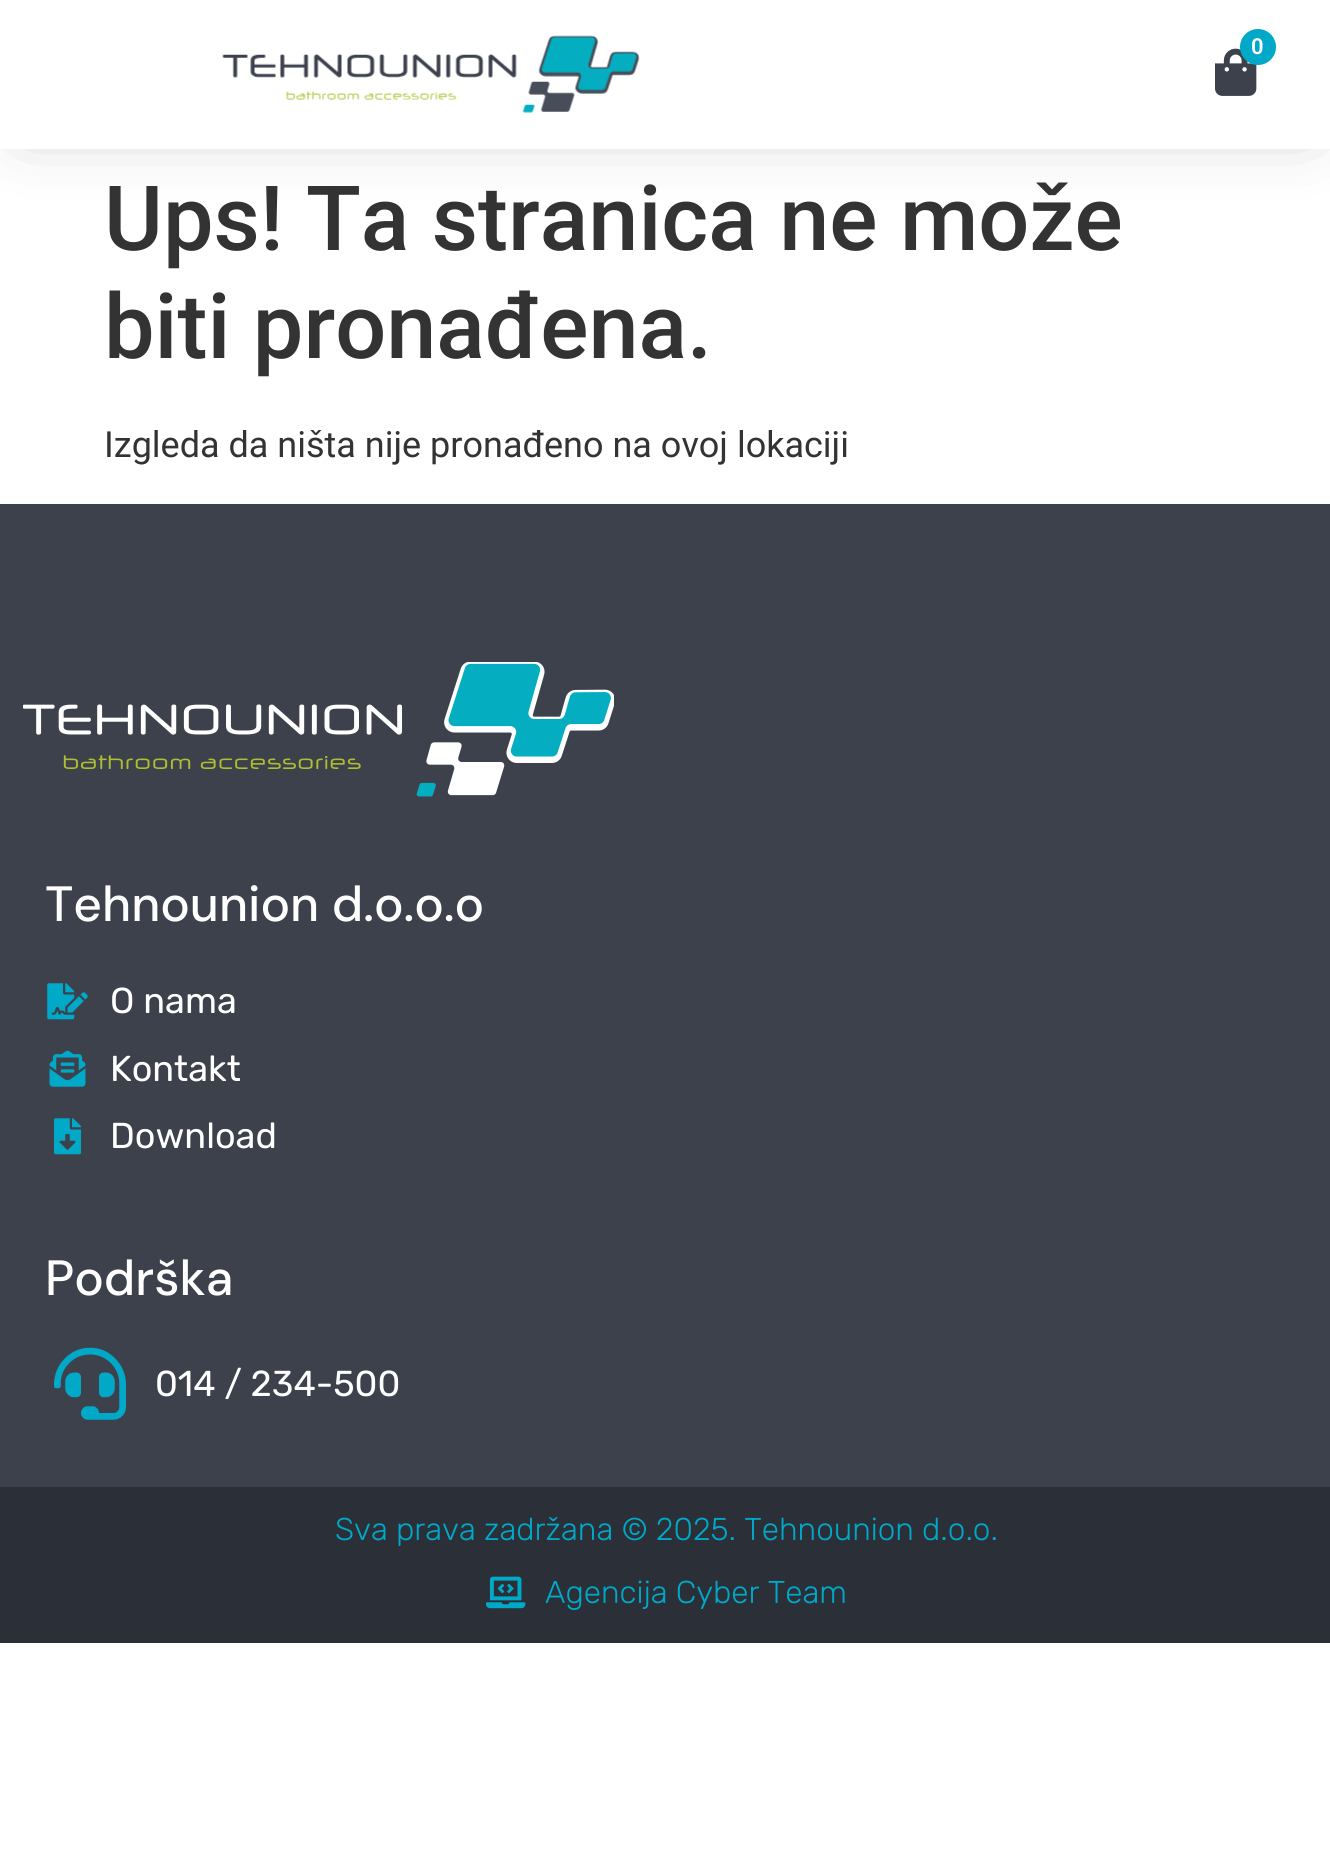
import math
import cairo


def round_path(ctx, x, y, w, h, r):
	ctx.new_sub_path()
	for i, (u, v) in enumerate([(x + w - r, y + h - r), (x + r, y + h - r), (x + r, y + r), (x + w - r, y + r)]):
		ctx.arc(u, v, r, i * math.pi / 2, (i + 1) * math.pi / 2)
	ctx.close_path()

def blur_box(ctx, x, y, w, h, r, blur, alpha):
	ctx.push_group_with_content(cairo.CONTENT_ALPHA)
	ctx.set_operator(cairo.OPERATOR_SOURCE)
	for i in range(15, -16, -2):
		e = blur * i / 6
		if min(w, h) + 2 * e > 0:
			ctx.set_source_rgba(0, 0, 0, alpha * math.erfc((i - 1) / 8.5) / 2)
			round_path(ctx, x - e, y - e, w + 2 * e, h + 2 * e, max(0, min(r + e + blur * .6, min(w, h) / 2 + e)))
			ctx.fill()
	ctx.mask(ctx.pop_group())

def paste(ctx, path, x, y, w, h):
	ctx.save()
	ctx.set_source_surface(cairo.ImageSurface.create_from_png(path), x, y)
	ctx.rectangle(x, y, w, h)
	ctx.fill()
	ctx.restore()

def draw(ctx):
	ctx.set_source_rgb(1, 1, 1)
	ctx.paint()
	ctx.set_source_rgb(0, 0, 0)
	blur_box(ctx, 23, 23, 1287, 103, 0, 34, 0.25)
	ctx.set_source_rgb(1, 1, 1)
	ctx.rectangle(0, 0, 1330, 149)
	ctx.fill()
	paste(ctx, 'media/1.png', 222, 35, 418, 78)
	paste(ctx, 'media/2.png', 1215, 48, 42, 48)
	ctx.set_source_rgb(0, 0.663, 0.784)
	ctx.arc(1258, 47, 18, 0, 2 * math.pi)
	ctx.fill()
	ctx.select_font_face('Roboto SemiBold')
	ctx.set_font_size(22)
	ctx.set_source_rgb(1, 1, 1)
	ctx.move_to(1251, 54)
	ctx.show_text('0')
	ctx.select_font_face('Roboto Medium')
	ctx.set_font_size(90)
	ctx.set_source_rgb(0.2, 0.2, 0.2)
	ctx.move_to(104, 250)
	ctx.show_text('Ups! Ta stranica ne može')
	ctx.move_to(104, 358)
	ctx.show_text('biti pronađena.')
	ctx.select_font_face('Roboto')
	ctx.set_font_size(36)
	ctx.move_to(104, 457)
	ctx.show_text('Izgleda da ništa nije pronađeno na ovoj lokaciji')
	ctx.set_source_rgb(0.235, 0.255, 0.298)
	ctx.rectangle(0, 504, 1330, 983)
	ctx.fill()
	paste(ctx, 'media/3.png', 23, 662, 591, 135)
	ctx.select_font_face('DM Sans Medium')
	ctx.set_font_size(49.5)
	ctx.set_source_rgb(1, 1, 1)
	ctx.move_to(45, 921)
	ctx.show_text('Tehnounion d.o.o.o')
	paste(ctx, 'media/4.png', 47, 983, 41, 37)
	ctx.select_font_face('Rubik')
	ctx.set_font_size(36)
	ctx.move_to(110, 1013)
	ctx.show_text('O nama')
	paste(ctx, 'media/5.png', 49, 1050, 37, 37)
	ctx.move_to(110, 1081)
	ctx.show_text('Kontakt')
	paste(ctx, 'media/6.png', 54, 1118, 27, 37)
	ctx.move_to(110, 1148)
	ctx.show_text('Download')
	ctx.select_font_face('DM Sans Medium')
	ctx.set_font_size(49.5)
	ctx.move_to(45, 1295)
	ctx.show_text('Podrška')
	paste(ctx, 'media/7.png', 54, 1347, 72, 73)
	ctx.select_font_face('Rubik')
	ctx.set_font_size(36)
	ctx.move_to(155, 1396)
	ctx.show_text('014 / 234-500')
	ctx.set_source_rgb(0.169, 0.184, 0.216)
	ctx.rectangle(0, 1487, 1330, 156)
	ctx.fill()
	ctx.select_font_face('Rubik Light')
	ctx.set_font_size(31.5)
	ctx.set_source_rgb(0, 0.663, 0.784)
	ctx.move_to(335, 1540)
	ctx.show_text('Sva prava zadržana © 2025. Tehnounion d.o.o.')
	paste(ctx, 'media/8.png', 486, 1576, 40, 33)
	ctx.move_to(545, 1603)
	ctx.show_text('Agencija Cyber Team')


surface = cairo.ImageSurface(cairo.FORMAT_RGB24, 1330, 1874)
ctx = cairo.Context(surface)
options = cairo.FontOptions()
options.set_hint_metrics(cairo.HINT_METRICS_OFF)
options.set_hint_style(cairo.HINT_STYLE_NONE)
ctx.set_font_options(options)
ctx.set_miter_limit(4)
draw(ctx)
surface.write_to_png('image.png')
